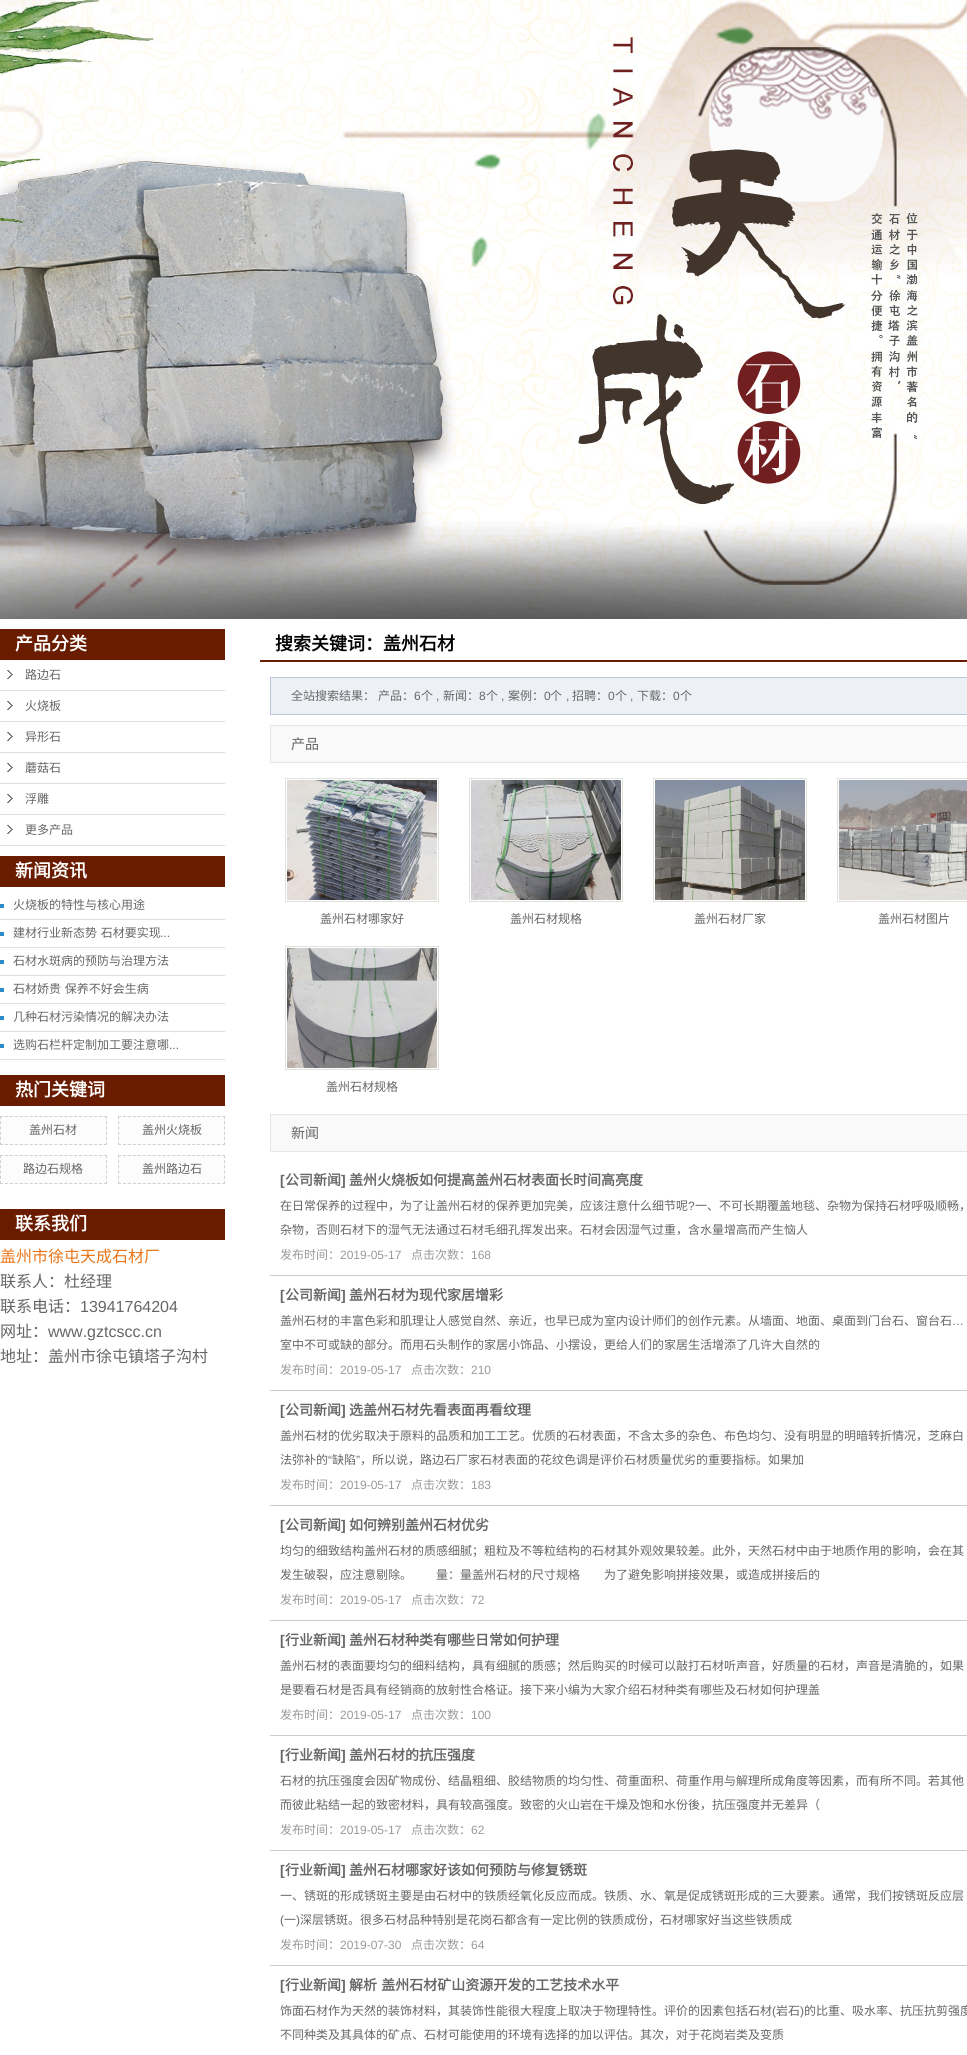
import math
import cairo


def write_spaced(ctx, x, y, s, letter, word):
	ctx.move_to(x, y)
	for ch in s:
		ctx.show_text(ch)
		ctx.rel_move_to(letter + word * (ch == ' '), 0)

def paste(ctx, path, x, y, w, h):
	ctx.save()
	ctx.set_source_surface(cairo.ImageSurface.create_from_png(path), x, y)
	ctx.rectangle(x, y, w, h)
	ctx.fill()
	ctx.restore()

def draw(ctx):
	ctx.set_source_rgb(1, 1, 1)
	ctx.paint()
	paste(ctx, 'media/1.png', 0, 0, 967, 619)
	ctx.set_source_rgb(0.416, 0.11, 0.004)
	ctx.rectangle(0, 629, 225, 31)
	ctx.fill()
	ctx.select_font_face('Noto Sans CJK SC', cairo.FONT_SLANT_NORMAL, cairo.FONT_WEIGHT_BOLD)
	ctx.set_font_size(18)
	ctx.set_source_rgb(1, 1, 1)
	ctx.move_to(15, 650)
	ctx.show_text('产品分类')
	paste(ctx, 'media/2.png', 7, 670, 6, 9)
	ctx.set_source_rgb(0.867, 0.867, 0.867)
	ctx.rectangle(0, 690, 225, 1)
	ctx.fill()
	ctx.select_font_face('Noto Sans CJK SC')
	ctx.set_font_size(12)
	ctx.set_source_rgb(0.4, 0.4, 0.4)
	ctx.move_to(25, 679)
	ctx.show_text('路边石')
	paste(ctx, 'media/2.png', 7, 701, 6, 9)
	ctx.set_source_rgb(0.867, 0.867, 0.867)
	ctx.rectangle(0, 721, 225, 1)
	ctx.fill()
	ctx.set_source_rgb(0.4, 0.4, 0.4)
	ctx.move_to(25, 710)
	ctx.show_text('火烧板')
	paste(ctx, 'media/2.png', 7, 732, 6, 9)
	ctx.set_source_rgb(0.867, 0.867, 0.867)
	ctx.rectangle(0, 752, 225, 1)
	ctx.fill()
	ctx.set_source_rgb(0.4, 0.4, 0.4)
	ctx.move_to(25, 741)
	ctx.show_text('异形石')
	paste(ctx, 'media/2.png', 7, 763, 6, 9)
	ctx.set_source_rgb(0.867, 0.867, 0.867)
	ctx.rectangle(0, 783, 225, 1)
	ctx.fill()
	ctx.set_source_rgb(0.4, 0.4, 0.4)
	ctx.move_to(25, 772)
	ctx.show_text('蘑菇石')
	paste(ctx, 'media/2.png', 7, 794, 6, 9)
	ctx.set_source_rgb(0.867, 0.867, 0.867)
	ctx.rectangle(0, 814, 225, 1)
	ctx.fill()
	ctx.set_source_rgb(0.4, 0.4, 0.4)
	ctx.move_to(25, 803)
	ctx.show_text('浮雕')
	paste(ctx, 'media/2.png', 7, 825, 6, 9)
	ctx.set_source_rgb(0.867, 0.867, 0.867)
	ctx.rectangle(0, 845, 225, 1)
	ctx.fill()
	ctx.set_source_rgb(0.4, 0.4, 0.4)
	ctx.move_to(25, 834)
	ctx.show_text('更多产品')
	ctx.set_source_rgb(0.416, 0.11, 0.004)
	ctx.rectangle(0, 856, 225, 31)
	ctx.fill()
	ctx.select_font_face('Noto Sans CJK SC', cairo.FONT_SLANT_NORMAL, cairo.FONT_WEIGHT_BOLD)
	ctx.set_font_size(18)
	ctx.set_source_rgb(1, 1, 1)
	ctx.move_to(15, 877)
	ctx.show_text('新闻资讯')
	ctx.set_source_rgb(0.18, 0.541, 0.788)
	ctx.rectangle(0, 904, 4, 4)
	ctx.fill()
	ctx.set_source_rgb(0.867, 0.867, 0.867)
	ctx.rectangle(0, 919, 225, 1)
	ctx.fill()
	ctx.select_font_face('Noto Sans CJK SC')
	ctx.set_font_size(12)
	ctx.set_source_rgb(0.4, 0.4, 0.4)
	ctx.move_to(13, 909)
	ctx.show_text('火烧板的特性与核心用途')
	ctx.set_source_rgb(0.18, 0.541, 0.788)
	ctx.rectangle(0, 932, 4, 4)
	ctx.fill()
	ctx.set_source_rgb(0.867, 0.867, 0.867)
	ctx.rectangle(0, 947, 225, 1)
	ctx.fill()
	ctx.set_source_rgb(0.4, 0.4, 0.4)
	write_spaced(ctx, 13, 937, '建材行业新态势 石材要实现', 0, 1)
	ctx.select_font_face('Liberation Sans')
	ctx.move_to(160, 937)
	ctx.show_text('...')
	ctx.set_source_rgb(0.18, 0.541, 0.788)
	ctx.rectangle(0, 960, 4, 4)
	ctx.fill()
	ctx.set_source_rgb(0.867, 0.867, 0.867)
	ctx.rectangle(0, 975, 225, 1)
	ctx.fill()
	ctx.select_font_face('Noto Sans CJK SC')
	ctx.set_source_rgb(0.4, 0.4, 0.4)
	ctx.move_to(13, 965)
	ctx.show_text('石材水斑病的预防与治理方法')
	ctx.set_source_rgb(0.18, 0.541, 0.788)
	ctx.rectangle(0, 988, 4, 4)
	ctx.fill()
	ctx.set_source_rgb(0.867, 0.867, 0.867)
	ctx.rectangle(0, 1003, 225, 1)
	ctx.fill()
	ctx.set_source_rgb(0.4, 0.4, 0.4)
	write_spaced(ctx, 13, 993, '石材娇贵 保养不好会生病', 0, 1)
	ctx.set_source_rgb(0.18, 0.541, 0.788)
	ctx.rectangle(0, 1016, 4, 4)
	ctx.fill()
	ctx.set_source_rgb(0.867, 0.867, 0.867)
	ctx.rectangle(0, 1031, 225, 1)
	ctx.fill()
	ctx.set_source_rgb(0.4, 0.4, 0.4)
	ctx.move_to(13, 1021)
	ctx.show_text('几种石材污染情况的解决办法')
	ctx.set_source_rgb(0.18, 0.541, 0.788)
	ctx.rectangle(0, 1044, 4, 4)
	ctx.fill()
	ctx.set_source_rgb(0.867, 0.867, 0.867)
	ctx.rectangle(0, 1059, 225, 1)
	ctx.fill()
	ctx.set_source_rgb(0.4, 0.4, 0.4)
	ctx.move_to(13, 1049)
	ctx.show_text('选购石栏杆定制加工要注意哪')
	ctx.select_font_face('Liberation Sans')
	ctx.move_to(169, 1049)
	ctx.show_text('...')
	ctx.set_source_rgb(0.416, 0.11, 0.004)
	ctx.rectangle(0, 1075, 225, 31)
	ctx.fill()
	ctx.select_font_face('Noto Sans CJK SC', cairo.FONT_SLANT_NORMAL, cairo.FONT_WEIGHT_BOLD)
	ctx.set_font_size(18)
	ctx.set_source_rgb(1, 1, 1)
	ctx.move_to(15, 1096)
	ctx.show_text('热门关键词')
	ctx.set_source_rgb(0.988, 0.988, 0.988)
	ctx.rectangle(0, 1116, 107, 29)
	ctx.fill()
	ctx.new_path()
	ctx.move_to(0, 1116.5)
	ctx.line_to(107, 1116.5)
	ctx.set_source_rgb(0.816, 0.816, 0.816)
	ctx.set_line_width(1)
	ctx.set_dash([3, 1.95])
	ctx.stroke()
	ctx.new_path()
	ctx.move_to(106.5, 1116)
	ctx.line_to(106.5, 1145)
	ctx.set_dash([3, 2.2])
	ctx.stroke()
	ctx.new_path()
	ctx.move_to(0, 1144.5)
	ctx.line_to(107, 1144.5)
	ctx.set_dash([3, 1.95])
	ctx.stroke()
	ctx.new_path()
	ctx.move_to(0.5, 1116)
	ctx.line_to(0.5, 1145)
	ctx.set_dash([3, 2.2])
	ctx.stroke()
	ctx.select_font_face('Noto Sans CJK SC')
	ctx.set_font_size(12)
	ctx.set_source_rgb(0.4, 0.4, 0.4)
	ctx.move_to(29, 1134)
	ctx.show_text('盖州石材')
	ctx.set_source_rgb(0.988, 0.988, 0.988)
	ctx.rectangle(118, 1116, 107, 29)
	ctx.fill()
	ctx.new_path()
	ctx.move_to(118, 1116.5)
	ctx.line_to(225, 1116.5)
	ctx.set_source_rgb(0.816, 0.816, 0.816)
	ctx.set_dash([3, 1.95])
	ctx.stroke()
	ctx.new_path()
	ctx.move_to(224.5, 1116)
	ctx.line_to(224.5, 1145)
	ctx.set_dash([3, 2.2])
	ctx.stroke()
	ctx.new_path()
	ctx.move_to(118, 1144.5)
	ctx.line_to(225, 1144.5)
	ctx.set_dash([3, 1.95])
	ctx.stroke()
	ctx.new_path()
	ctx.move_to(118.5, 1116)
	ctx.line_to(118.5, 1145)
	ctx.set_dash([3, 2.2])
	ctx.stroke()
	ctx.set_source_rgb(0.4, 0.4, 0.4)
	ctx.move_to(142, 1134)
	ctx.show_text('盖州火烧板')
	ctx.set_source_rgb(0.988, 0.988, 0.988)
	ctx.rectangle(0, 1155, 107, 29)
	ctx.fill()
	ctx.new_path()
	ctx.move_to(0, 1155.5)
	ctx.line_to(107, 1155.5)
	ctx.set_source_rgb(0.816, 0.816, 0.816)
	ctx.set_dash([3, 1.95])
	ctx.stroke()
	ctx.new_path()
	ctx.move_to(106.5, 1155)
	ctx.line_to(106.5, 1184)
	ctx.set_dash([3, 2.2])
	ctx.stroke()
	ctx.new_path()
	ctx.move_to(0, 1183.5)
	ctx.line_to(107, 1183.5)
	ctx.set_dash([3, 1.95])
	ctx.stroke()
	ctx.new_path()
	ctx.move_to(0.5, 1155)
	ctx.line_to(0.5, 1184)
	ctx.set_dash([3, 2.2])
	ctx.stroke()
	ctx.set_source_rgb(0.4, 0.4, 0.4)
	ctx.move_to(23, 1173)
	ctx.show_text('路边石规格')
	ctx.set_source_rgb(0.988, 0.988, 0.988)
	ctx.rectangle(118, 1155, 107, 29)
	ctx.fill()
	ctx.new_path()
	ctx.move_to(118, 1155.5)
	ctx.line_to(225, 1155.5)
	ctx.set_source_rgb(0.816, 0.816, 0.816)
	ctx.set_dash([3, 1.95])
	ctx.stroke()
	ctx.new_path()
	ctx.move_to(224.5, 1155)
	ctx.line_to(224.5, 1184)
	ctx.set_dash([3, 2.2])
	ctx.stroke()
	ctx.new_path()
	ctx.move_to(118, 1183.5)
	ctx.line_to(225, 1183.5)
	ctx.set_dash([3, 1.95])
	ctx.stroke()
	ctx.new_path()
	ctx.move_to(118.5, 1155)
	ctx.line_to(118.5, 1184)
	ctx.set_dash([3, 2.2])
	ctx.stroke()
	ctx.set_source_rgb(0.4, 0.4, 0.4)
	ctx.move_to(142, 1173)
	ctx.show_text('盖州路边石')
	ctx.set_source_rgb(0.416, 0.11, 0.004)
	ctx.rectangle(0, 1209, 225, 31)
	ctx.fill()
	ctx.select_font_face('Noto Sans CJK SC', cairo.FONT_SLANT_NORMAL, cairo.FONT_WEIGHT_BOLD)
	ctx.set_font_size(18)
	ctx.set_source_rgb(1, 1, 1)
	ctx.move_to(15, 1230)
	ctx.show_text('联系我们')
	ctx.select_font_face('Noto Sans CJK SC')
	ctx.set_font_size(16)
	ctx.set_source_rgb(0.91, 0.459, 0.094)
	ctx.move_to(0, 1262)
	ctx.show_text('盖州市徐屯天成石材厂')
	ctx.set_source_rgb(0.4, 0.4, 0.4)
	ctx.move_to(0, 1287)
	ctx.show_text('联系人：杜经理')
	ctx.move_to(0, 1312)
	ctx.show_text('联系电话：')
	ctx.select_font_face('Liberation Sans')
	ctx.move_to(80, 1312)
	ctx.show_text('13941764204')
	ctx.select_font_face('Noto Sans CJK SC')
	ctx.move_to(0, 1337)
	ctx.show_text('网址：')
	ctx.select_font_face('Liberation Sans')
	ctx.move_to(48, 1337)
	ctx.show_text('www.gztcscc.cn')
	ctx.select_font_face('Noto Sans CJK SC')
	ctx.move_to(0, 1362)
	ctx.show_text('地址：盖州市徐屯镇塔子沟村')
	ctx.set_source_rgb(0.416, 0.11, 0.004)
	ctx.rectangle(260, 660, 707, 2)
	ctx.fill()
	ctx.select_font_face('Noto Sans CJK SC', cairo.FONT_SLANT_NORMAL, cairo.FONT_WEIGHT_BOLD)
	ctx.set_font_size(18)
	ctx.set_source_rgb(0, 0, 0)
	ctx.move_to(275, 650)
	ctx.show_text('搜索关键词：盖州石材')
	ctx.set_source_rgb(0.929, 0.945, 0.961)
	ctx.rectangle(270.5, 677.5, 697, 37)
	ctx.fill_preserve()
	ctx.set_source_rgb(0.714, 0.78, 0.859)
	ctx.set_dash([])
	ctx.stroke()
	ctx.select_font_face('Noto Sans CJK SC')
	ctx.set_font_size(12)
	ctx.set_source_rgb(0.4, 0.4, 0.4)
	ctx.move_to(291, 700)
	ctx.show_text('全站搜索结果：')
	ctx.move_to(378, 700)
	ctx.show_text('产品：')
	ctx.select_font_face('Liberation Sans')
	ctx.move_to(414, 700)
	ctx.show_text('6')
	ctx.select_font_face('Noto Sans CJK SC')
	ctx.move_to(421, 700)
	ctx.show_text('个')
	ctx.select_font_face('Liberation Sans')
	ctx.move_to(436, 700)
	ctx.show_text(',')
	ctx.select_font_face('Noto Sans CJK SC')
	ctx.move_to(443, 700)
	ctx.show_text('新闻：')
	ctx.select_font_face('Liberation Sans')
	ctx.move_to(479, 700)
	ctx.show_text('8')
	ctx.select_font_face('Noto Sans CJK SC')
	ctx.move_to(486, 700)
	ctx.show_text('个')
	ctx.select_font_face('Liberation Sans')
	ctx.move_to(501, 700)
	ctx.show_text(',')
	ctx.select_font_face('Noto Sans CJK SC')
	ctx.move_to(508, 700)
	ctx.show_text('案例：')
	ctx.select_font_face('Liberation Sans')
	ctx.move_to(544, 700)
	ctx.show_text('0')
	ctx.select_font_face('Noto Sans CJK SC')
	ctx.move_to(550, 700)
	ctx.show_text('个')
	ctx.select_font_face('Liberation Sans')
	ctx.move_to(566, 700)
	ctx.show_text(',')
	ctx.select_font_face('Noto Sans CJK SC')
	ctx.move_to(572, 700)
	ctx.show_text('招聘：')
	ctx.select_font_face('Liberation Sans')
	ctx.move_to(608, 700)
	ctx.show_text('0')
	ctx.select_font_face('Noto Sans CJK SC')
	ctx.move_to(615, 700)
	ctx.show_text('个')
	ctx.select_font_face('Liberation Sans')
	ctx.move_to(630, 700)
	ctx.show_text(',')
	ctx.select_font_face('Noto Sans CJK SC')
	ctx.move_to(637, 700)
	ctx.show_text('下载：')
	ctx.select_font_face('Liberation Sans')
	ctx.move_to(673, 700)
	ctx.show_text('0')
	ctx.select_font_face('Noto Sans CJK SC')
	ctx.move_to(680, 700)
	ctx.show_text('个')
	ctx.set_source_rgb(0.976, 0.976, 0.976)
	ctx.rectangle(270.5, 725.5, 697, 37)
	ctx.fill_preserve()
	ctx.set_source_rgb(0.898, 0.898, 0.898)
	ctx.stroke()
	ctx.set_font_size(14)
	ctx.set_source_rgb(0.4, 0.4, 0.4)
	ctx.move_to(291, 749)
	ctx.show_text('产品')
	ctx.rectangle(285.5, 778.5, 153, 123)
	ctx.set_source_rgb(0.878, 0.882, 0.863)
	ctx.stroke()
	paste(ctx, 'media/3.png', 287, 780, 150, 120)
	ctx.set_font_size(12)
	ctx.set_source_rgb(0.4, 0.4, 0.4)
	ctx.move_to(320, 923)
	ctx.show_text('盖州石材哪家好')
	ctx.rectangle(469.5, 778.5, 153, 123)
	ctx.set_source_rgb(0.878, 0.882, 0.863)
	ctx.stroke()
	paste(ctx, 'media/4.png', 471, 780, 150, 120)
	ctx.set_source_rgb(0.4, 0.4, 0.4)
	ctx.move_to(510, 923)
	ctx.show_text('盖州石材规格')
	ctx.rectangle(653.5, 778.5, 153, 123)
	ctx.set_source_rgb(0.878, 0.882, 0.863)
	ctx.stroke()
	paste(ctx, 'media/5.png', 655, 780, 150, 120)
	ctx.set_source_rgb(0.4, 0.4, 0.4)
	ctx.move_to(694, 923)
	ctx.show_text('盖州石材厂家')
	ctx.rectangle(837.5, 778.5, 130, 123)
	ctx.set_source_rgb(0.878, 0.882, 0.863)
	ctx.stroke()
	paste(ctx, 'media/6.png', 839, 780, 128, 120)
	ctx.set_source_rgb(0.4, 0.4, 0.4)
	ctx.move_to(878, 923)
	ctx.show_text('盖州石材图片')
	ctx.rectangle(285.5, 946.5, 153, 123)
	ctx.set_source_rgb(0.878, 0.882, 0.863)
	ctx.stroke()
	paste(ctx, 'media/7.png', 287, 948, 150, 120)
	ctx.set_source_rgb(0.4, 0.4, 0.4)
	ctx.move_to(326, 1091)
	ctx.show_text('盖州石材规格')
	ctx.set_source_rgb(0.976, 0.976, 0.976)
	ctx.rectangle(270.5, 1114.5, 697, 37)
	ctx.fill_preserve()
	ctx.set_source_rgb(0.898, 0.898, 0.898)
	ctx.stroke()
	ctx.set_font_size(14)
	ctx.set_source_rgb(0.4, 0.4, 0.4)
	ctx.move_to(291, 1138)
	ctx.show_text('新闻')
	ctx.select_font_face('Liberation Sans', cairo.FONT_SLANT_NORMAL, cairo.FONT_WEIGHT_BOLD)
	ctx.move_to(280, 1185)
	ctx.show_text('[')
	ctx.select_font_face('Noto Sans CJK SC', cairo.FONT_SLANT_NORMAL, cairo.FONT_WEIGHT_BOLD)
	ctx.move_to(285, 1185)
	ctx.show_text('公司新闻')
	ctx.select_font_face('Liberation Sans', cairo.FONT_SLANT_NORMAL, cairo.FONT_WEIGHT_BOLD)
	ctx.move_to(341, 1185)
	ctx.show_text(']')
	ctx.select_font_face('Noto Sans CJK SC', cairo.FONT_SLANT_NORMAL, cairo.FONT_WEIGHT_BOLD)
	ctx.move_to(349, 1185)
	ctx.show_text('盖州火烧板如何提高盖州石材表面长时间高亮度')
	ctx.select_font_face('Noto Sans CJK SC')
	ctx.set_font_size(12)
	ctx.move_to(280, 1210)
	ctx.show_text('在日常保养的过程中，为了让盖州石材的保养更加完美，应该注意什么细节呢')
	ctx.select_font_face('Liberation Sans')
	ctx.move_to(688, 1210)
	ctx.show_text('?')
	ctx.select_font_face('Noto Sans CJK SC')
	ctx.move_to(695, 1210)
	ctx.show_text('一、不可长期覆盖地毯、杂物为保持石材呼吸顺畅，')
	ctx.move_to(280, 1234)
	ctx.show_text('杂物，否则石材下的湿气无法通过石材毛细孔挥发出来。石材会因湿气过重，含水量增高而产生恼人')
	ctx.set_source_rgb(0.6, 0.6, 0.6)
	ctx.move_to(280, 1259)
	ctx.show_text('发布时间：')
	ctx.select_font_face('Liberation Sans')
	ctx.move_to(340, 1259)
	ctx.show_text('2019-05-17')
	ctx.select_font_face('Noto Sans CJK SC')
	ctx.move_to(411, 1259)
	ctx.show_text('点击次数：')
	ctx.select_font_face('Liberation Sans')
	ctx.move_to(471, 1259)
	ctx.show_text('168')
	ctx.set_source_rgb(0.8, 0.8, 0.8)
	ctx.rectangle(270, 1275, 697, 1)
	ctx.fill()
	ctx.select_font_face('Liberation Sans', cairo.FONT_SLANT_NORMAL, cairo.FONT_WEIGHT_BOLD)
	ctx.set_font_size(14)
	ctx.set_source_rgb(0.4, 0.4, 0.4)
	ctx.move_to(280, 1300)
	ctx.show_text('[')
	ctx.select_font_face('Noto Sans CJK SC', cairo.FONT_SLANT_NORMAL, cairo.FONT_WEIGHT_BOLD)
	ctx.move_to(285, 1300)
	ctx.show_text('公司新闻')
	ctx.select_font_face('Liberation Sans', cairo.FONT_SLANT_NORMAL, cairo.FONT_WEIGHT_BOLD)
	ctx.move_to(341, 1300)
	ctx.show_text(']')
	ctx.select_font_face('Noto Sans CJK SC', cairo.FONT_SLANT_NORMAL, cairo.FONT_WEIGHT_BOLD)
	ctx.move_to(349, 1300)
	ctx.show_text('盖州石材为现代家居增彩')
	ctx.select_font_face('Noto Sans CJK SC')
	ctx.set_font_size(12)
	ctx.move_to(280, 1325)
	ctx.show_text('盖州石材的丰富色彩和肌理让人感觉自然、亲近，也早已成为室内设计师们的创作元素。从墙面、地面、桌面到门台石、窗台石')
	ctx.select_font_face('Liberation Sans')
	ctx.move_to(952, 1325)
	ctx.show_text('…')
	ctx.select_font_face('Noto Sans CJK SC')
	ctx.move_to(280, 1349)
	ctx.show_text('室中不可或缺的部分。而用石头制作的家居小饰品、小摆设，更给人们的家居生活增添了几许大自然的')
	ctx.set_source_rgb(0.6, 0.6, 0.6)
	ctx.move_to(280, 1374)
	ctx.show_text('发布时间：')
	ctx.select_font_face('Liberation Sans')
	ctx.move_to(340, 1374)
	ctx.show_text('2019-05-17')
	ctx.select_font_face('Noto Sans CJK SC')
	ctx.move_to(411, 1374)
	ctx.show_text('点击次数：')
	ctx.select_font_face('Liberation Sans')
	ctx.move_to(471, 1374)
	ctx.show_text('210')
	ctx.set_source_rgb(0.8, 0.8, 0.8)
	ctx.rectangle(270, 1390, 697, 1)
	ctx.fill()
	ctx.select_font_face('Liberation Sans', cairo.FONT_SLANT_NORMAL, cairo.FONT_WEIGHT_BOLD)
	ctx.set_font_size(14)
	ctx.set_source_rgb(0.4, 0.4, 0.4)
	ctx.move_to(280, 1415)
	ctx.show_text('[')
	ctx.select_font_face('Noto Sans CJK SC', cairo.FONT_SLANT_NORMAL, cairo.FONT_WEIGHT_BOLD)
	ctx.move_to(285, 1415)
	ctx.show_text('公司新闻')
	ctx.select_font_face('Liberation Sans', cairo.FONT_SLANT_NORMAL, cairo.FONT_WEIGHT_BOLD)
	ctx.move_to(341, 1415)
	ctx.show_text(']')
	ctx.select_font_face('Noto Sans CJK SC', cairo.FONT_SLANT_NORMAL, cairo.FONT_WEIGHT_BOLD)
	ctx.move_to(349, 1415)
	ctx.show_text('选盖州石材先看表面再看纹理')
	ctx.select_font_face('Noto Sans CJK SC')
	ctx.set_font_size(12)
	ctx.move_to(280, 1440)
	ctx.show_text('盖州石材的优劣取决于原料的品质和加工工艺。优质的石材表面，不含太多的杂色、布色均匀、没有明显的明暗转折情况，芝麻白')
	ctx.move_to(280, 1464)
	ctx.show_text('法弥补的')
	ctx.select_font_face('Liberation Sans')
	ctx.move_to(328, 1464)
	ctx.show_text('“')
	ctx.select_font_face('Noto Sans CJK SC')
	ctx.move_to(332, 1464)
	ctx.show_text('缺陷')
	ctx.select_font_face('Liberation Sans')
	ctx.move_to(356, 1464)
	ctx.show_text('”')
	ctx.select_font_face('Noto Sans CJK SC')
	ctx.move_to(360, 1464)
	ctx.show_text('，所以说，路边石厂家石材表面的花纹色调是评价石材质量优劣的重要指标。如果加')
	ctx.set_source_rgb(0.6, 0.6, 0.6)
	ctx.move_to(280, 1489)
	ctx.show_text('发布时间：')
	ctx.select_font_face('Liberation Sans')
	ctx.move_to(340, 1489)
	ctx.show_text('2019-05-17')
	ctx.select_font_face('Noto Sans CJK SC')
	ctx.move_to(411, 1489)
	ctx.show_text('点击次数：')
	ctx.select_font_face('Liberation Sans')
	ctx.move_to(471, 1489)
	ctx.show_text('183')
	ctx.set_source_rgb(0.8, 0.8, 0.8)
	ctx.rectangle(270, 1505, 697, 1)
	ctx.fill()
	ctx.select_font_face('Liberation Sans', cairo.FONT_SLANT_NORMAL, cairo.FONT_WEIGHT_BOLD)
	ctx.set_font_size(14)
	ctx.set_source_rgb(0.4, 0.4, 0.4)
	ctx.move_to(280, 1530)
	ctx.show_text('[')
	ctx.select_font_face('Noto Sans CJK SC', cairo.FONT_SLANT_NORMAL, cairo.FONT_WEIGHT_BOLD)
	ctx.move_to(285, 1530)
	ctx.show_text('公司新闻')
	ctx.select_font_face('Liberation Sans', cairo.FONT_SLANT_NORMAL, cairo.FONT_WEIGHT_BOLD)
	ctx.move_to(341, 1530)
	ctx.show_text(']')
	ctx.select_font_face('Noto Sans CJK SC', cairo.FONT_SLANT_NORMAL, cairo.FONT_WEIGHT_BOLD)
	ctx.move_to(349, 1530)
	ctx.show_text('如何辨别盖州石材优劣')
	ctx.select_font_face('Noto Sans CJK SC')
	ctx.set_font_size(12)
	ctx.move_to(280, 1555)
	ctx.show_text('均匀的细致结构盖州石材的质感细腻；粗粒及不等粒结构的石材其外观效果较差。此外，天然石材中由于地质作用的影响，会在其')
	ctx.move_to(280, 1579)
	ctx.show_text('发生破裂，应注意剔除。　　量：量盖州石材的尺寸规格　　为了避免影响拼接效果，或造成拼接后的')
	ctx.set_source_rgb(0.6, 0.6, 0.6)
	ctx.move_to(280, 1604)
	ctx.show_text('发布时间：')
	ctx.select_font_face('Liberation Sans')
	ctx.move_to(340, 1604)
	ctx.show_text('2019-05-17')
	ctx.select_font_face('Noto Sans CJK SC')
	ctx.move_to(411, 1604)
	ctx.show_text('点击次数：')
	ctx.select_font_face('Liberation Sans')
	ctx.move_to(471, 1604)
	ctx.show_text('72')
	ctx.set_source_rgb(0.8, 0.8, 0.8)
	ctx.rectangle(270, 1620, 697, 1)
	ctx.fill()
	ctx.select_font_face('Liberation Sans', cairo.FONT_SLANT_NORMAL, cairo.FONT_WEIGHT_BOLD)
	ctx.set_font_size(14)
	ctx.set_source_rgb(0.4, 0.4, 0.4)
	ctx.move_to(280, 1645)
	ctx.show_text('[')
	ctx.select_font_face('Noto Sans CJK SC', cairo.FONT_SLANT_NORMAL, cairo.FONT_WEIGHT_BOLD)
	ctx.move_to(285, 1645)
	ctx.show_text('行业新闻')
	ctx.select_font_face('Liberation Sans', cairo.FONT_SLANT_NORMAL, cairo.FONT_WEIGHT_BOLD)
	ctx.move_to(341, 1645)
	ctx.show_text(']')
	ctx.select_font_face('Noto Sans CJK SC', cairo.FONT_SLANT_NORMAL, cairo.FONT_WEIGHT_BOLD)
	ctx.move_to(349, 1645)
	ctx.show_text('盖州石材种类有哪些日常如何护理')
	ctx.select_font_face('Noto Sans CJK SC')
	ctx.set_font_size(12)
	ctx.move_to(280, 1670)
	ctx.show_text('盖州石材的表面要均匀的细料结构，具有细腻的质感；然后购买的时候可以敲打石材听声音，好质量的石材，声音是清脆的，如果')
	ctx.move_to(280, 1694)
	ctx.show_text('是要看石材是否具有经销商的放射性合格证。接下来小编为大家介绍石材种类有哪些及石材如何护理盖')
	ctx.set_source_rgb(0.6, 0.6, 0.6)
	ctx.move_to(280, 1719)
	ctx.show_text('发布时间：')
	ctx.select_font_face('Liberation Sans')
	ctx.move_to(340, 1719)
	ctx.show_text('2019-05-17')
	ctx.select_font_face('Noto Sans CJK SC')
	ctx.move_to(411, 1719)
	ctx.show_text('点击次数：')
	ctx.select_font_face('Liberation Sans')
	ctx.move_to(471, 1719)
	ctx.show_text('100')
	ctx.set_source_rgb(0.8, 0.8, 0.8)
	ctx.rectangle(270, 1735, 697, 1)
	ctx.fill()
	ctx.select_font_face('Liberation Sans', cairo.FONT_SLANT_NORMAL, cairo.FONT_WEIGHT_BOLD)
	ctx.set_font_size(14)
	ctx.set_source_rgb(0.4, 0.4, 0.4)
	ctx.move_to(280, 1760)
	ctx.show_text('[')
	ctx.select_font_face('Noto Sans CJK SC', cairo.FONT_SLANT_NORMAL, cairo.FONT_WEIGHT_BOLD)
	ctx.move_to(285, 1760)
	ctx.show_text('行业新闻')
	ctx.select_font_face('Liberation Sans', cairo.FONT_SLANT_NORMAL, cairo.FONT_WEIGHT_BOLD)
	ctx.move_to(341, 1760)
	ctx.show_text(']')
	ctx.select_font_face('Noto Sans CJK SC', cairo.FONT_SLANT_NORMAL, cairo.FONT_WEIGHT_BOLD)
	ctx.move_to(349, 1760)
	ctx.show_text('盖州石材的抗压强度')
	ctx.select_font_face('Noto Sans CJK SC')
	ctx.set_font_size(12)
	ctx.move_to(280, 1785)
	ctx.show_text('石材的抗压强度会因矿物成份、结晶粗细、胶结物质的均匀性、荷重面积、荷重作用与解理所成角度等因素，而有所不同。若其他')
	ctx.move_to(280, 1809)
	ctx.show_text('而彼此粘结一起的致密材料，具有较高强度。致密的火山岩在干燥及饱和水份後，抗压强度并无差异（')
	ctx.set_source_rgb(0.6, 0.6, 0.6)
	ctx.move_to(280, 1834)
	ctx.show_text('发布时间：')
	ctx.select_font_face('Liberation Sans')
	ctx.move_to(340, 1834)
	ctx.show_text('2019-05-17')
	ctx.select_font_face('Noto Sans CJK SC')
	ctx.move_to(411, 1834)
	ctx.show_text('点击次数：')
	ctx.select_font_face('Liberation Sans')
	ctx.move_to(471, 1834)
	ctx.show_text('62')
	ctx.set_source_rgb(0.8, 0.8, 0.8)
	ctx.rectangle(270, 1850, 697, 1)
	ctx.fill()
	ctx.select_font_face('Liberation Sans', cairo.FONT_SLANT_NORMAL, cairo.FONT_WEIGHT_BOLD)
	ctx.set_font_size(14)
	ctx.set_source_rgb(0.4, 0.4, 0.4)
	ctx.move_to(280, 1875)
	ctx.show_text('[')
	ctx.select_font_face('Noto Sans CJK SC', cairo.FONT_SLANT_NORMAL, cairo.FONT_WEIGHT_BOLD)
	ctx.move_to(285, 1875)
	ctx.show_text('行业新闻')
	ctx.select_font_face('Liberation Sans', cairo.FONT_SLANT_NORMAL, cairo.FONT_WEIGHT_BOLD)
	ctx.move_to(341, 1875)
	ctx.show_text(']')
	ctx.select_font_face('Noto Sans CJK SC', cairo.FONT_SLANT_NORMAL, cairo.FONT_WEIGHT_BOLD)
	ctx.move_to(349, 1875)
	ctx.show_text('盖州石材哪家好该如何预防与修复锈斑')
	ctx.select_font_face('Noto Sans CJK SC')
	ctx.set_font_size(12)
	ctx.move_to(280, 1900)
	ctx.show_text('一、锈斑的形成锈斑主要是由石材中的铁质经氧化反应而成。铁质、水、氧是促成锈斑形成的三大要素。通常，我们按锈斑反应层')
	ctx.select_font_face('Liberation Sans')
	ctx.move_to(280, 1924)
	ctx.show_text('(')
	ctx.select_font_face('Noto Sans CJK SC')
	ctx.move_to(284, 1924)
	ctx.show_text('一')
	ctx.select_font_face('Liberation Sans')
	ctx.move_to(296, 1924)
	ctx.show_text(')')
	ctx.select_font_face('Noto Sans CJK SC')
	ctx.move_to(300, 1924)
	ctx.show_text('深层锈斑。很多石材品种特别是花岗石都含有一定比例的铁质成份，石材哪家好当这些铁质成')
	ctx.set_source_rgb(0.6, 0.6, 0.6)
	ctx.move_to(280, 1949)
	ctx.show_text('发布时间：')
	ctx.select_font_face('Liberation Sans')
	ctx.move_to(340, 1949)
	ctx.show_text('2019-07-30')
	ctx.select_font_face('Noto Sans CJK SC')
	ctx.move_to(411, 1949)
	ctx.show_text('点击次数：')
	ctx.select_font_face('Liberation Sans')
	ctx.move_to(471, 1949)
	ctx.show_text('64')
	ctx.set_source_rgb(0.8, 0.8, 0.8)
	ctx.rectangle(270, 1965, 697, 1)
	ctx.fill()
	ctx.select_font_face('Liberation Sans', cairo.FONT_SLANT_NORMAL, cairo.FONT_WEIGHT_BOLD)
	ctx.set_font_size(14)
	ctx.set_source_rgb(0.4, 0.4, 0.4)
	ctx.move_to(280, 1990)
	ctx.show_text('[')
	ctx.select_font_face('Noto Sans CJK SC', cairo.FONT_SLANT_NORMAL, cairo.FONT_WEIGHT_BOLD)
	ctx.move_to(285, 1990)
	ctx.show_text('行业新闻')
	ctx.select_font_face('Liberation Sans', cairo.FONT_SLANT_NORMAL, cairo.FONT_WEIGHT_BOLD)
	ctx.move_to(341, 1990)
	ctx.show_text(']')
	ctx.select_font_face('Noto Sans CJK SC', cairo.FONT_SLANT_NORMAL, cairo.FONT_WEIGHT_BOLD)
	write_spaced(ctx, 349, 1990, '解析 盖州石材矿山资源开发的工艺技术水平', 0, 1)
	ctx.select_font_face('Noto Sans CJK SC')
	ctx.set_font_size(12)
	ctx.move_to(280, 2015)
	ctx.show_text('饰面石材作为天然的装饰材料，其装饰性能很大程度上取决于物理特性。评价的因素包括石材')
	ctx.select_font_face('Liberation Sans')
	ctx.move_to(772, 2015)
	ctx.show_text('(')
	ctx.select_font_face('Noto Sans CJK SC')
	ctx.move_to(776, 2015)
	ctx.show_text('岩石')
	ctx.select_font_face('Liberation Sans')
	ctx.move_to(800, 2015)
	ctx.show_text(')')
	ctx.select_font_face('Noto Sans CJK SC')
	ctx.move_to(804, 2015)
	ctx.show_text('的比重、吸水率、抗压抗剪强度')
	ctx.move_to(280, 2039)
	ctx.show_text('不同种类及其具体的矿点、石材可能使用的环境有选择的加以评估。其次，对于花岗岩类及变质')


surface = cairo.ImageSurface(cairo.FORMAT_RGB24, 967, 2055)
ctx = cairo.Context(surface)
options = cairo.FontOptions()
options.set_hint_metrics(cairo.HINT_METRICS_OFF)
options.set_hint_style(cairo.HINT_STYLE_NONE)
ctx.set_font_options(options)
ctx.set_miter_limit(4)
draw(ctx)
surface.write_to_png('image.png')
